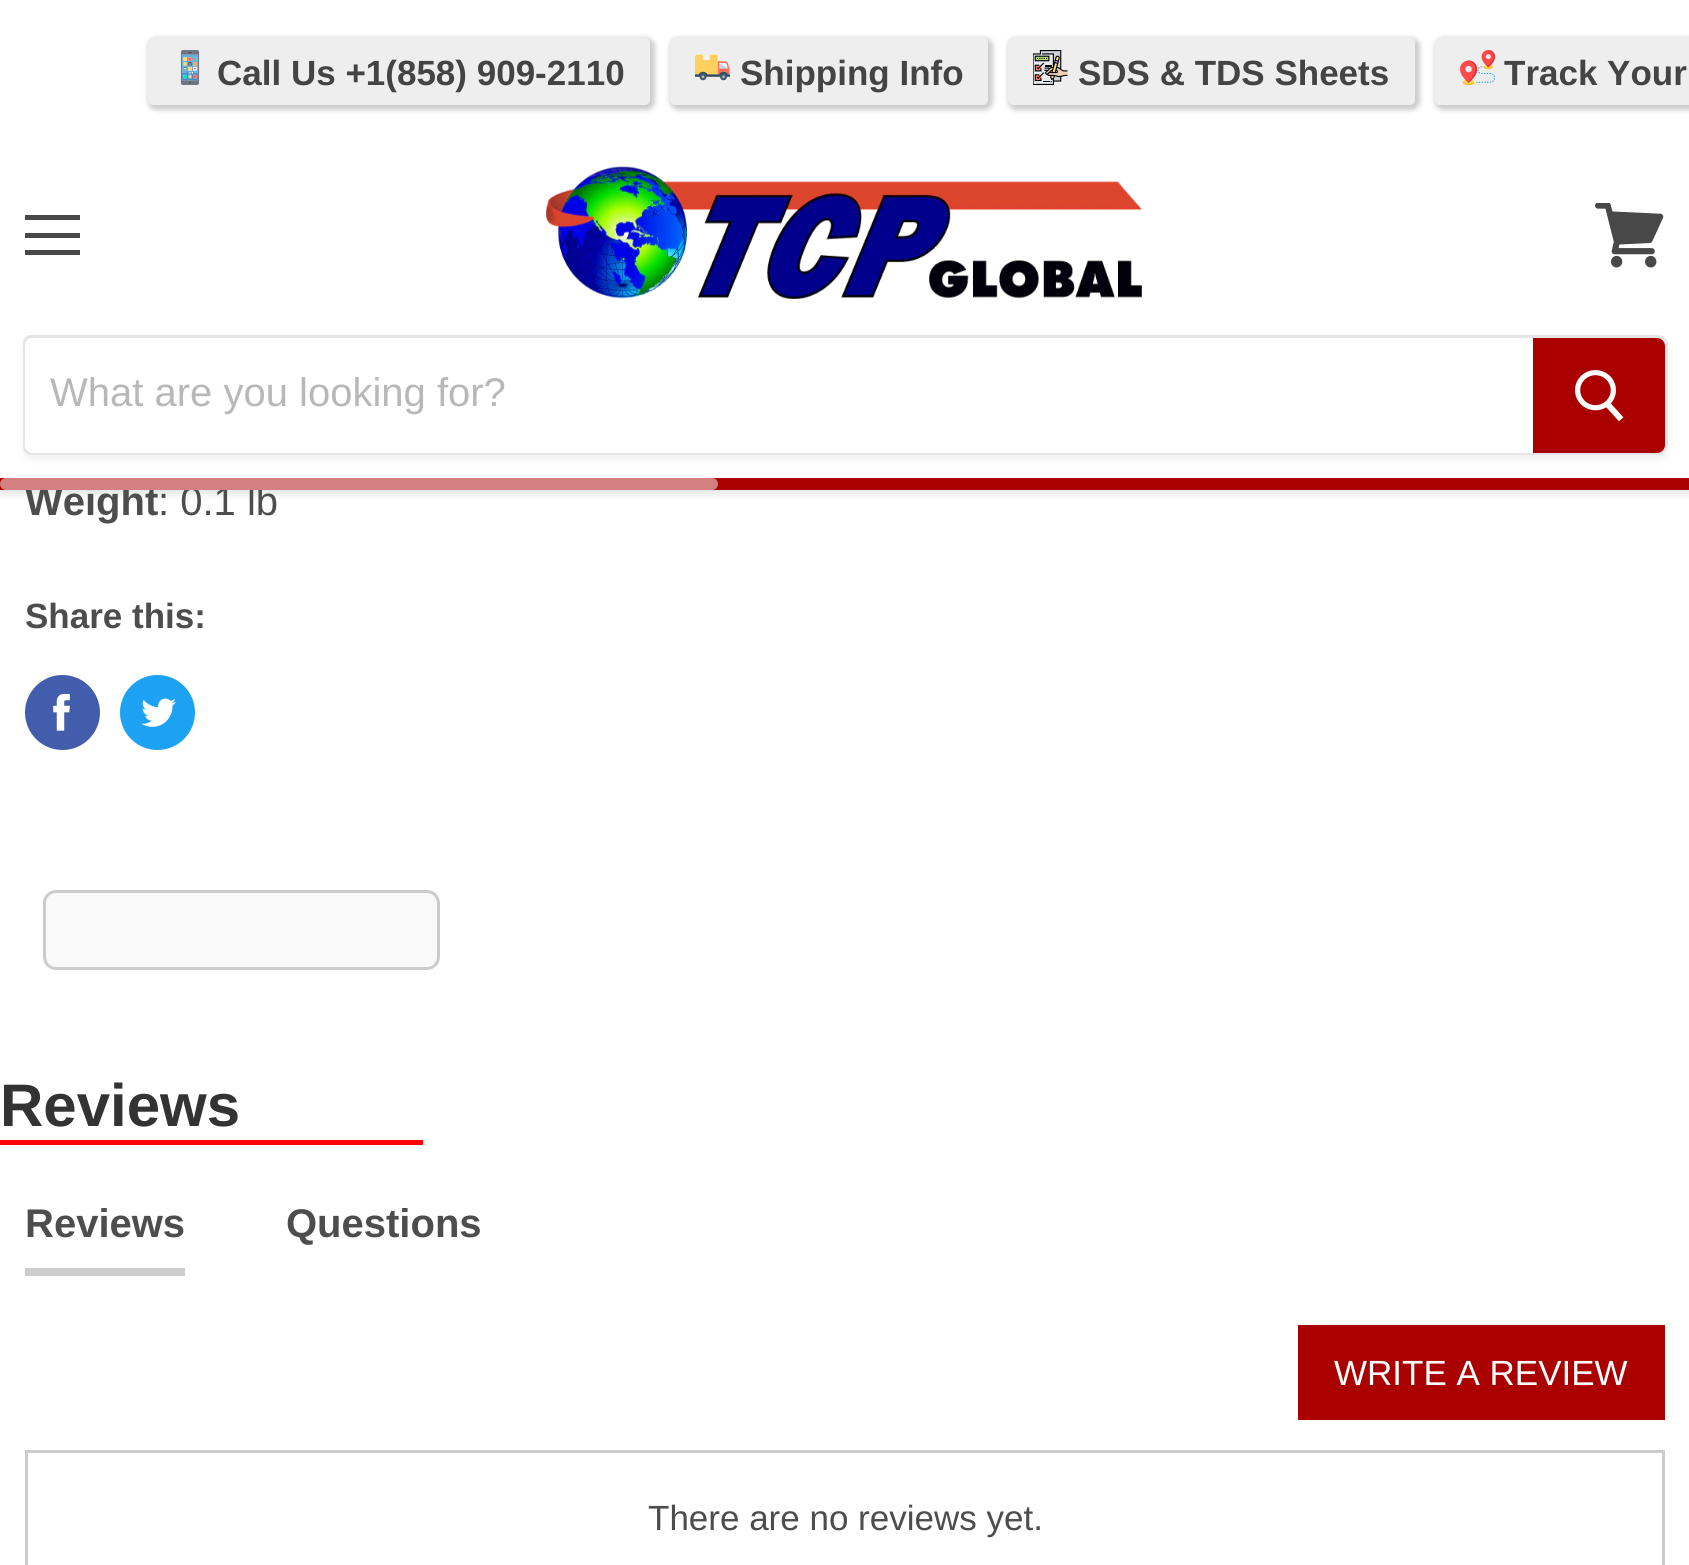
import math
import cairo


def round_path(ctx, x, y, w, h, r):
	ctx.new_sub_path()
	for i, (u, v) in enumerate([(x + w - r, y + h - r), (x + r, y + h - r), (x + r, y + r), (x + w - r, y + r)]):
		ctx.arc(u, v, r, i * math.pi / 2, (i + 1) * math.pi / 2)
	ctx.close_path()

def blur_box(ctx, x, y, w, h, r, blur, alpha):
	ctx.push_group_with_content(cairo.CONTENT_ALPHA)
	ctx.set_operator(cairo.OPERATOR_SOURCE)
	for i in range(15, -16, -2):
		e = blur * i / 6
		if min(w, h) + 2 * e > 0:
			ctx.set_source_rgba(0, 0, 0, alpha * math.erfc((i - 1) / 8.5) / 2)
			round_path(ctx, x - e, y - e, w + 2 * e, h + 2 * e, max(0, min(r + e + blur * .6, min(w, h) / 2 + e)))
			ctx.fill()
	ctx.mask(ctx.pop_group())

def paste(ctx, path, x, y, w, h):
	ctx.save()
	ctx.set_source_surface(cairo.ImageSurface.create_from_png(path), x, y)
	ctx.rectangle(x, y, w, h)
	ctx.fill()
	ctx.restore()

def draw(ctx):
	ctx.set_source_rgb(1, 1, 1)
	ctx.paint()
	ctx.set_source_rgb(0.498, 0.498, 0.498)
	blur_box(ctx, 0, 3, 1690, 490, 0, 5, 0.25)
	ctx.set_source_rgb(1, 1, 1)
	ctx.rectangle(0, 0, 1689, 478)
	ctx.fill()
	ctx.set_source_rgb(0.8, 0.8, 0.8)
	blur_box(ctx, 148, 38, 507, 72, 8, 2.5, 1)
	ctx.set_source_rgb(0.933, 0.933, 0.933)
	round_path(ctx, 148, 38, 502, 67, 5)
	ctx.fill()
	paste(ctx, 'media/1.png', 180, 50, 20, 35)
	ctx.select_font_face('Liberation Sans', cairo.FONT_SLANT_NORMAL, cairo.FONT_WEIGHT_BOLD)
	ctx.set_font_size(35)
	ctx.set_source_rgb(0.267, 0.267, 0.267)
	ctx.move_to(217, 85)
	ctx.show_text('Call Us +1(858) 909-2110')
	ctx.set_source_rgb(0.8, 0.8, 0.8)
	blur_box(ctx, 670, 38, 323, 72, 8, 2.5, 1)
	ctx.set_source_rgb(0.933, 0.933, 0.933)
	round_path(ctx, 670, 38, 318, 67, 5)
	ctx.fill()
	paste(ctx, 'media/2.png', 695, 54, 35, 27)
	ctx.set_source_rgb(0.267, 0.267, 0.267)
	ctx.move_to(740, 85)
	ctx.show_text('Shipping Info')
	ctx.set_source_rgb(0.8, 0.8, 0.8)
	blur_box(ctx, 1008, 38, 412, 72, 8, 2.5, 1)
	ctx.set_source_rgb(0.933, 0.933, 0.933)
	round_path(ctx, 1008, 38, 407, 67, 5)
	ctx.fill()
	paste(ctx, 'media/3.png', 1033, 50, 35, 35)
	ctx.set_source_rgb(0.267, 0.267, 0.267)
	ctx.move_to(1078, 85)
	ctx.show_text('SDS & TDS Sheets')
	ctx.set_source_rgb(0.8, 0.8, 0.8)
	blur_box(ctx, 1435, 38, 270, 72, 8, 2.5, 1)
	ctx.set_source_rgb(0.933, 0.933, 0.933)
	round_path(ctx, 1435, 38, 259, 67, 5)
	ctx.fill()
	paste(ctx, 'media/4.png', 1460, 50, 35, 35)
	ctx.set_source_rgb(0.267, 0.267, 0.267)
	ctx.move_to(1504, 85)
	ctx.show_text('Track Your')
	ctx.set_source_rgb(0.282, 0.282, 0.282)
	ctx.rectangle(25, 215, 55, 5)
	ctx.rectangle(25, 233, 55, 5)
	ctx.rectangle(25, 250, 55, 5)
	ctx.fill()
	paste(ctx, 'media/5.png', 1595, 203, 69, 65)
	paste(ctx, 'media/6.png', 546, 166, 596, 133)
	ctx.save()
	ctx.set_fill_rule(cairo.FILL_RULE_EVEN_ODD)
	ctx.new_path()
	ctx.move_to(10, 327)
	ctx.line_to(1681, 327)
	ctx.line_to(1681, 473)
	ctx.line_to(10, 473)
	ctx.close_path()
	ctx.move_to(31, 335)
	ctx.line_to(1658, 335)
	ctx.curve_to(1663.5, 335, 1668, 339.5, 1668, 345)
	ctx.line_to(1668, 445)
	ctx.curve_to(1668, 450.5, 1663.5, 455, 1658, 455)
	ctx.line_to(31, 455)
	ctx.curve_to(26.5, 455, 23, 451.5, 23, 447)
	ctx.line_to(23, 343)
	ctx.curve_to(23, 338.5, 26.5, 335, 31, 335)
	ctx.close_path()
	ctx.clip()
	ctx.set_source_rgb(0.498, 0.498, 0.498)
	blur_box(ctx, 23, 340, 1645, 120, 10, 4, 0.11)
	ctx.restore()
	ctx.new_path()
	ctx.move_to(31, 336.5)
	ctx.line_to(1658, 336.5)
	ctx.curve_to(1662.5, 336.5, 1666.5, 340.5, 1666.5, 345)
	ctx.line_to(1666.5, 445)
	ctx.curve_to(1666.5, 449.5, 1662.5, 453.5, 1658, 453.5)
	ctx.line_to(31, 453.5)
	ctx.curve_to(27.5, 453.5, 24.5, 450.5, 24.5, 447)
	ctx.line_to(24.5, 343)
	ctx.curve_to(24.5, 339.5, 27.5, 336.5, 31, 336.5)
	ctx.close_path()
	ctx.set_source_rgba(0.498, 0.498, 0.498, 0.2)
	ctx.set_line_width(3)
	ctx.stroke()
	ctx.set_source_rgb(1, 1, 1)
	ctx.new_path()
	ctx.move_to(33, 338)
	ctx.line_to(1533, 338)
	ctx.line_to(1533, 453)
	ctx.line_to(33, 453)
	ctx.curve_to(28.5, 453, 25, 449.5, 25, 445)
	ctx.line_to(25, 346)
	ctx.curve_to(25, 341.5, 28.5, 338, 33, 338)
	ctx.close_path()
	ctx.fill()
	ctx.select_font_face('Liberation Sans')
	ctx.set_font_size(40)
	ctx.set_source_rgb(0.722, 0.722, 0.722)
	ctx.move_to(50, 406)
	ctx.show_text('What are you looking for?')
	ctx.set_source_rgb(0.667, 0, 0)
	ctx.new_path()
	ctx.move_to(1534.5, 339.5)
	ctx.line_to(1657, 339.5)
	ctx.curve_to(1660.5, 339.5, 1663.5, 342.5, 1663.5, 346)
	ctx.line_to(1663.5, 445)
	ctx.curve_to(1663.5, 448.5, 1660.5, 451.5, 1657, 451.5)
	ctx.line_to(1534.5, 451.5)
	ctx.close_path()
	ctx.fill_preserve()
	ctx.stroke()
	paste(ctx, 'media/7.png', 1575, 370, 49, 52)
	ctx.select_font_face('Liberation Sans', cairo.FONT_SLANT_NORMAL, cairo.FONT_WEIGHT_BOLD)
	ctx.set_source_rgb(0.302, 0.302, 0.302)
	ctx.move_to(25, 515)
	ctx.show_text('Weight')
	ctx.select_font_face('Liberation Sans')
	ctx.move_to(158, 515)
	ctx.show_text(': 0.1 lb')
	ctx.set_source_rgb(0.663, 0, 0)
	ctx.rectangle(0, 478, 1689, 12)
	ctx.fill()
	ctx.set_source_rgb(0.831, 0.502, 0.502)
	round_path(ctx, 0, 478, 718, 12, 6)
	ctx.fill()
	ctx.select_font_face('Liberation Sans', cairo.FONT_SLANT_NORMAL, cairo.FONT_WEIGHT_BOLD)
	ctx.set_font_size(35)
	ctx.set_source_rgb(0.302, 0.302, 0.302)
	ctx.move_to(25, 628)
	ctx.show_text('Share this:')
	ctx.set_source_rgb(0.259, 0.365, 0.671)
	ctx.new_path()
	ctx.arc(62.5, 712.5, 37.5, 0, 2 * math.pi)
	ctx.fill()
	paste(ctx, 'media/8.png', 53, 693, 17, 38)
	ctx.set_source_rgb(0.114, 0.631, 0.949)
	ctx.arc(157.5, 712.5, 37.5, 0, 2 * math.pi)
	ctx.fill()
	paste(ctx, 'media/9.png', 141, 698, 35, 29)
	ctx.set_source_rgb(0.973, 0.973, 0.973)
	round_path(ctx, 44.5, 891.5, 394, 77, 11.5)
	ctx.fill_preserve()
	ctx.set_source_rgb(0.8, 0.8, 0.8)
	ctx.stroke()
	ctx.set_source_rgb(1, 0, 0)
	ctx.rectangle(0, 1140, 423, 5)
	ctx.fill()
	ctx.set_font_size(60)
	ctx.set_source_rgb(0.2, 0.2, 0.2)
	ctx.move_to(0, 1126)
	ctx.show_text('Reviews')
	ctx.set_source_rgb(0.8, 0.8, 0.8)
	ctx.rectangle(25, 1268, 160, 8)
	ctx.fill()
	ctx.set_font_size(40)
	ctx.set_source_rgb(0.302, 0.302, 0.302)
	ctx.move_to(25, 1237)
	ctx.show_text('Reviews')
	ctx.move_to(286, 1237)
	ctx.show_text('Questions')
	ctx.set_source_rgb(0.667, 0.004, 0)
	ctx.rectangle(1298, 1325, 367, 95)
	ctx.fill()
	ctx.select_font_face('Liberation Sans')
	ctx.set_font_size(35)
	ctx.set_source_rgb(1, 1, 1)
	ctx.move_to(1334, 1385)
	ctx.show_text('WRITE A REVIEW')
	ctx.rectangle(26.5, 1451.5, 1637, 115)
	ctx.set_source_rgb(0.8, 0.8, 0.8)
	ctx.stroke()
	ctx.set_source_rgb(0.302, 0.302, 0.302)
	ctx.move_to(648, 1530)
	ctx.show_text('There are no reviews yet.')


surface = cairo.ImageSurface(cairo.FORMAT_RGB24, 1689, 1565)
ctx = cairo.Context(surface)
options = cairo.FontOptions()
options.set_hint_metrics(cairo.HINT_METRICS_OFF)
options.set_hint_style(cairo.HINT_STYLE_NONE)
ctx.set_font_options(options)
ctx.set_miter_limit(4)
draw(ctx)
surface.write_to_png('image.png')
